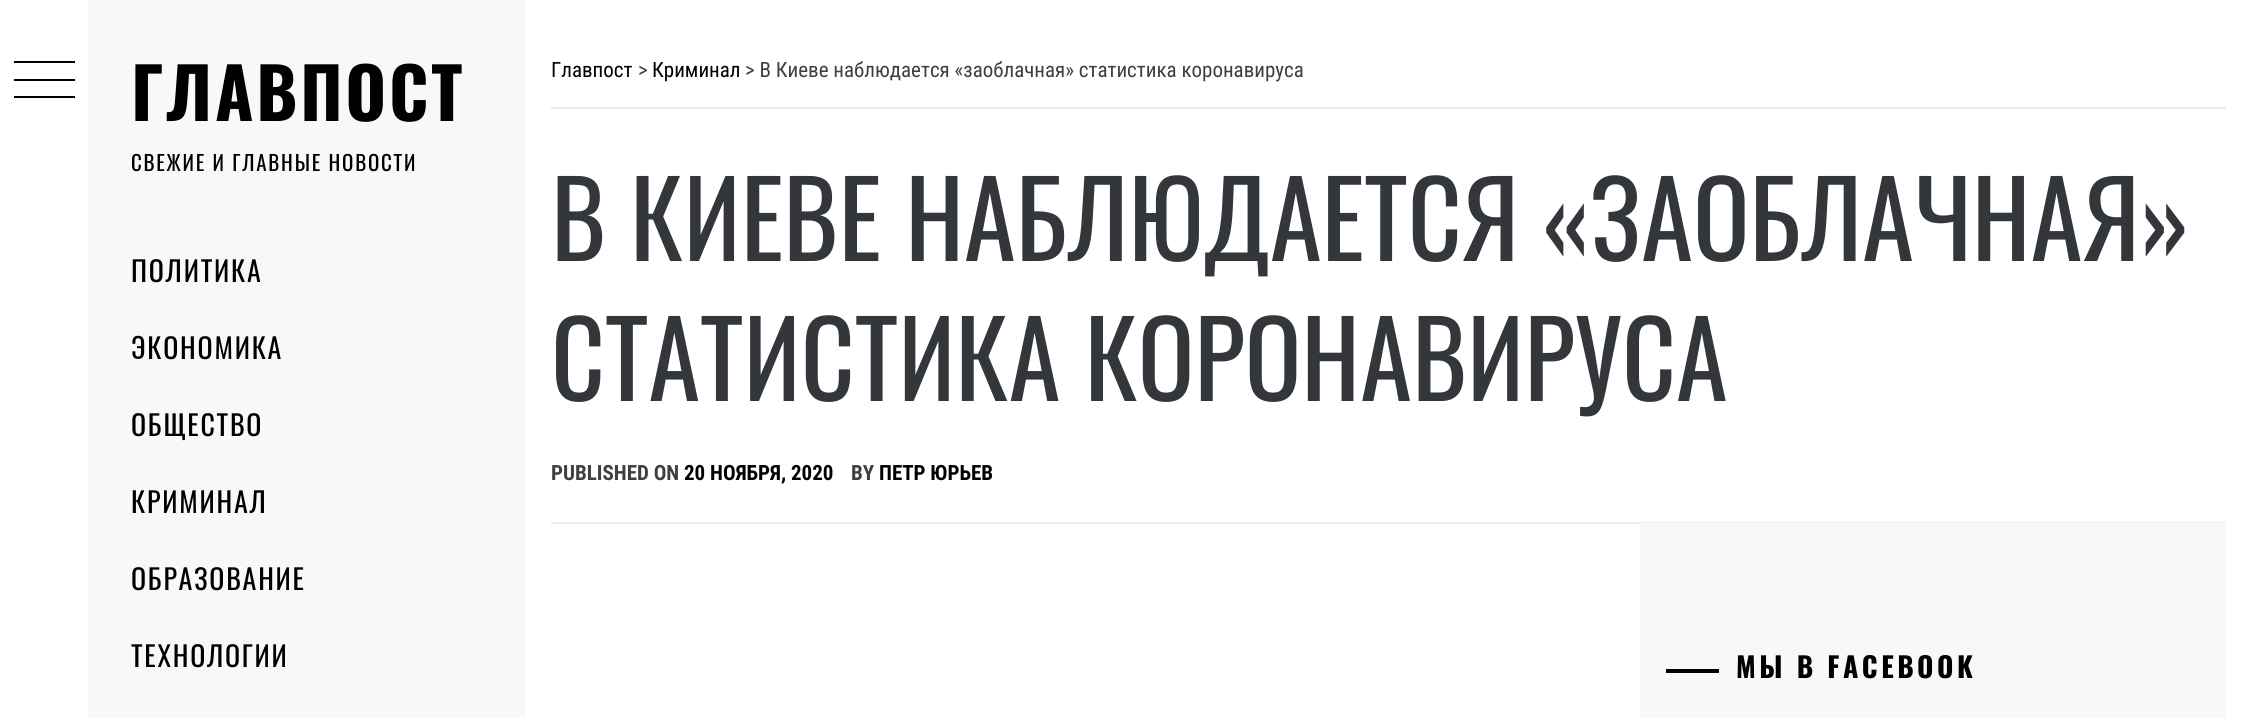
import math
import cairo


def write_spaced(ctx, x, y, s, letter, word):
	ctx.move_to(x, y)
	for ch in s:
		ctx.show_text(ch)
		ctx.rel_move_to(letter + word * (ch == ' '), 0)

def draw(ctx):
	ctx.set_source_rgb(1, 1, 1)
	ctx.paint()
	ctx.set_source_rgb(0, 0, 0)
	ctx.rectangle(14, 61, 61, 2)
	ctx.rectangle(14, 79, 61, 2)
	ctx.rectangle(14, 96, 61, 2)
	ctx.fill()
	ctx.set_source_rgb(0.965, 0.973, 0.976)
	ctx.rectangle(88, 0, 437, 718)
	ctx.fill()
	ctx.select_font_face('Oswald', cairo.FONT_SLANT_NORMAL, cairo.FONT_WEIGHT_BOLD)
	ctx.set_font_size(70)
	ctx.set_source_rgb(0, 0, 0)
	write_spaced(ctx, 131, 121, 'ГЛАВПОСТ', 2.75, 0)
	ctx.select_font_face('Oswald')
	ctx.set_font_size(21)
	write_spaced(ctx, 131, 171, 'СВЕЖИЕ И ГЛАВНЫЕ НОВОСТИ', 1.75, 0)
	ctx.set_font_size(28)
	for x, y, s in [
		(131, 282, 'ПОЛИТИКА'),
		(131, 359, 'ЭКОНОМИКА'),
		(131, 436, 'ОБЩЕСТВО'),
		(131, 513, 'КРИМИНАЛ'),
		(131, 590, 'ОБРАЗОВАНИЕ'),
		(131, 667, 'ТЕХНОЛОГИИ'),
	]:
		write_spaced(ctx, x, y, s, 1.75, 0)
	ctx.set_source_rgb(0.918, 0.918, 0.918)
	ctx.rectangle(551, 522, 1675, 2)
	ctx.fill()
	ctx.rectangle(551, 107, 1675, 2)
	ctx.fill()
	ctx.select_font_face('Roboto Condensed')
	ctx.set_font_size(21)
	ctx.set_source_rgb(0, 0, 0)
	ctx.move_to(551, 77)
	ctx.show_text('Главпост')
	ctx.set_source_rgb(0.243, 0.247, 0.251)
	ctx.move_to(638, 77)
	ctx.show_text('>')
	ctx.set_source_rgb(0, 0, 0)
	ctx.move_to(652, 77)
	ctx.show_text('Криминал')
	ctx.set_source_rgb(0.243, 0.247, 0.251)
	ctx.move_to(745, 77)
	ctx.show_text('> В Киеве наблюдается «заоблачная» статистика коронавируса')
	ctx.select_font_face('Oswald')
	ctx.set_font_size(105)
	ctx.set_source_rgb(0.2, 0.212, 0.231)
	ctx.move_to(551, 261)
	ctx.show_text('В КИЕВЕ НАБЛЮДАЕТСЯ «ЗАОБЛАЧНАЯ»')
	ctx.move_to(551, 401)
	ctx.show_text('СТАТИСТИКА КОРОНАВИРУСА')
	ctx.select_font_face('Roboto Condensed', cairo.FONT_SLANT_NORMAL, cairo.FONT_WEIGHT_BOLD)
	ctx.set_font_size(21)
	ctx.set_source_rgb(0.243, 0.247, 0.251)
	ctx.move_to(551, 480)
	ctx.show_text('PUBLISHED ON')
	ctx.set_source_rgb(0, 0, 0)
	ctx.move_to(684, 480)
	ctx.show_text('20 НОЯБРЯ, 2020')
	ctx.set_source_rgb(0.243, 0.247, 0.251)
	ctx.move_to(851, 480)
	ctx.show_text('BY')
	ctx.set_source_rgb(0, 0, 0)
	ctx.move_to(879, 480)
	ctx.show_text('ПЕТР ЮРЬЕВ')
	ctx.set_source_rgb(0.965, 0.973, 0.976)
	ctx.rectangle(1640, 523, 586, 195)
	ctx.fill()
	ctx.set_source_rgb(0, 0, 0)
	ctx.rectangle(1666, 669, 53, 4)
	ctx.fill()
	ctx.select_font_face('Oswald', cairo.FONT_SLANT_NORMAL, cairo.FONT_WEIGHT_BOLD)
	ctx.set_font_size(28)
	write_spaced(ctx, 1736, 678, 'МЫ В FACEBOOK', 3.5, 0)


surface = cairo.ImageSurface(cairo.FORMAT_RGB24, 2252, 718)
ctx = cairo.Context(surface)
options = cairo.FontOptions()
options.set_hint_metrics(cairo.HINT_METRICS_OFF)
options.set_hint_style(cairo.HINT_STYLE_NONE)
ctx.set_font_options(options)
ctx.set_miter_limit(4)
draw(ctx)
surface.write_to_png('image.png')
